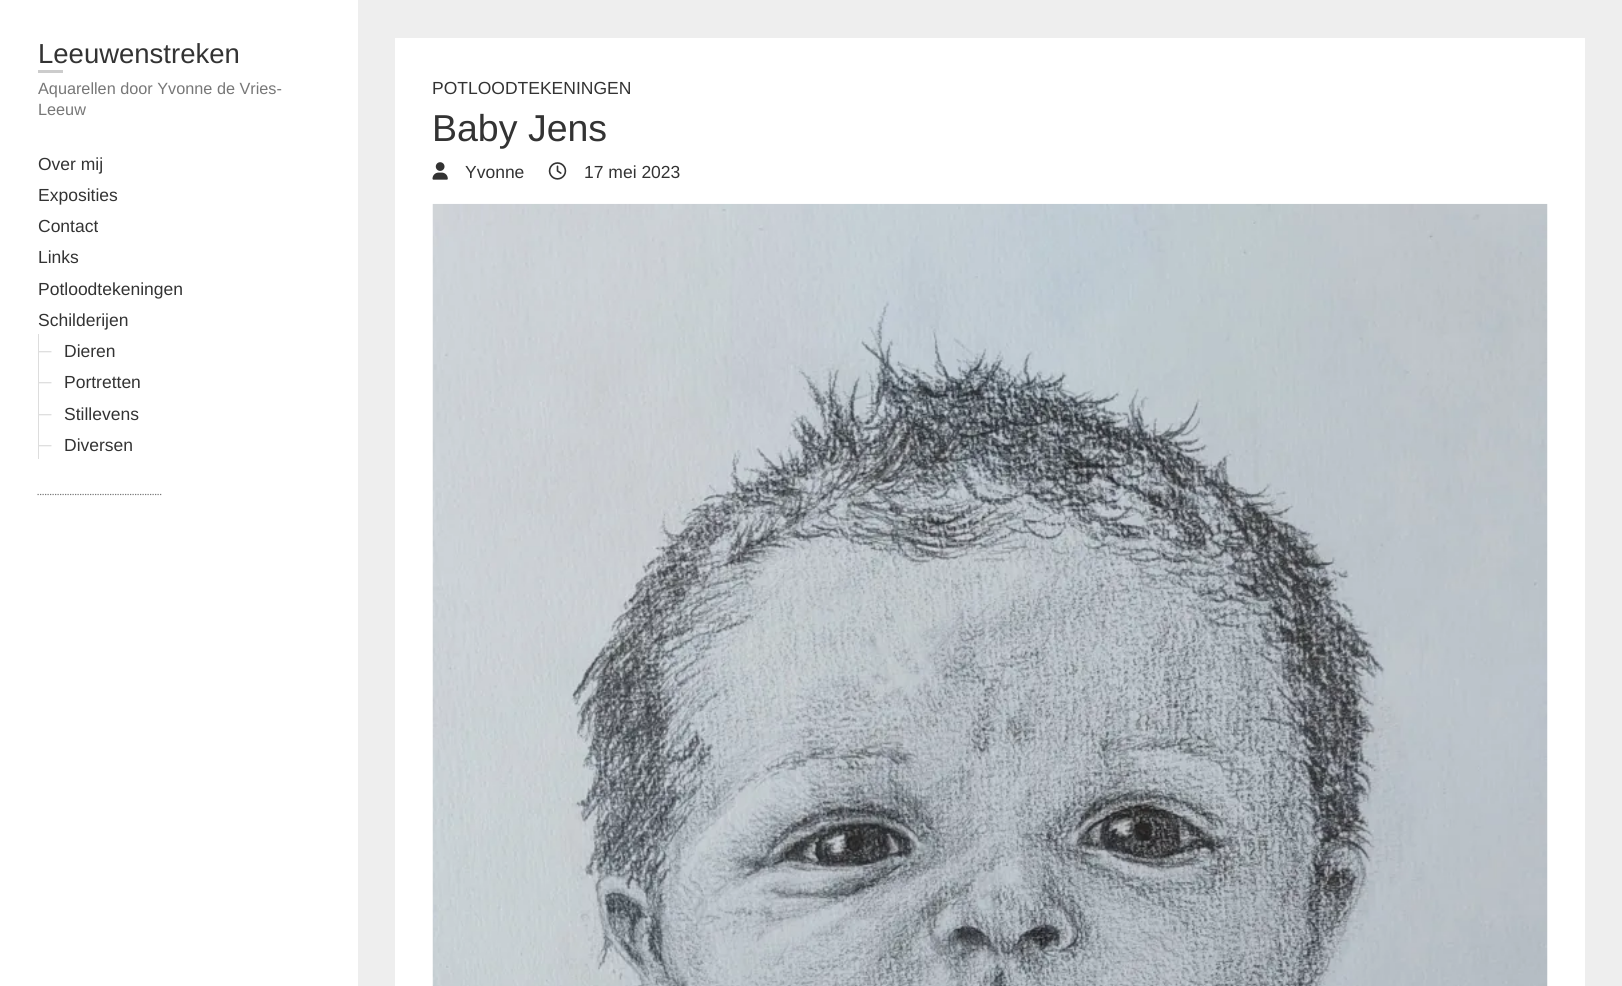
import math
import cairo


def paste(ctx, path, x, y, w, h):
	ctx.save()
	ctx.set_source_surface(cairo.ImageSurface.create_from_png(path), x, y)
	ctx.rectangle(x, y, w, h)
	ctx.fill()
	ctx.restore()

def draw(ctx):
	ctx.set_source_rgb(0.933, 0.933, 0.933)
	ctx.paint()
	ctx.set_source_rgb(1, 1, 1)
	ctx.rectangle(0, 0, 358, 986)
	ctx.fill()
	ctx.select_font_face('Liberation Sans')
	ctx.set_font_size(27.5)
	ctx.set_source_rgb(0.2, 0.2, 0.2)
	ctx.move_to(38, 63)
	ctx.show_text('Leeuwenstreken')
	ctx.set_source_rgb(0.8, 0.8, 0.8)
	ctx.rectangle(38, 70, 25, 3)
	ctx.fill()
	ctx.set_font_size(16.25)
	ctx.set_source_rgb(0.467, 0.467, 0.467)
	ctx.move_to(38, 94)
	ctx.show_text('Aquarellen door Yvonne de Vries-')
	ctx.move_to(38, 115)
	ctx.show_text('Leeuw')
	ctx.set_font_size(17.5)
	ctx.set_source_rgb(0.2, 0.2, 0.2)
	for x, y, s in [
		(38, 170, 'Over mij'),
		(38, 201, 'Exposities'),
		(38, 232, 'Contact'),
		(38, 263, 'Links'),
		(38, 295, 'Potloodtekeningen'),
		(38, 326, 'Schilderijen'),
	]:
		ctx.move_to(x, y)
		ctx.show_text(s)
	ctx.set_source_rgb(0.867, 0.867, 0.867)
	ctx.rectangle(38, 334, 1, 125)
	ctx.fill()
	ctx.move_to(39, 357)
	ctx.show_text('─')
	ctx.set_source_rgb(0.2, 0.2, 0.2)
	ctx.move_to(64, 357)
	ctx.show_text('Dieren')
	ctx.set_source_rgb(0.867, 0.867, 0.867)
	ctx.move_to(39, 388)
	ctx.show_text('─')
	ctx.set_source_rgb(0.2, 0.2, 0.2)
	ctx.move_to(64, 388)
	ctx.show_text('Portretten')
	ctx.set_source_rgb(0.867, 0.867, 0.867)
	ctx.move_to(39, 420)
	ctx.show_text('─')
	ctx.set_source_rgb(0.2, 0.2, 0.2)
	ctx.move_to(64, 420)
	ctx.show_text('Stillevens')
	ctx.set_source_rgb(0.867, 0.867, 0.867)
	ctx.move_to(39, 451)
	ctx.show_text('─')
	ctx.set_source_rgb(0.2, 0.2, 0.2)
	ctx.move_to(64, 451)
	ctx.show_text('Diversen')
	ctx.new_path()
	ctx.move_to(37.5, 494.5)
	ctx.line_to(162.5, 494.5)
	ctx.set_source_rgb(0.467, 0.467, 0.467)
	ctx.set_line_width(1.2)
	ctx.set_dash([1.25, 1.25])
	ctx.stroke()
	ctx.set_source_rgb(1, 1, 1)
	ctx.rectangle(395, 38, 1190, 948)
	ctx.fill()
	ctx.set_source_rgb(0.2, 0.2, 0.2)
	ctx.move_to(432, 94)
	ctx.show_text('POTLOODTEKENINGEN')
	ctx.set_font_size(37.5)
	ctx.move_to(432, 141)
	ctx.show_text('Baby Jens')
	paste(ctx, 'media/1.png', 432, 162, 16, 18)
	ctx.set_font_size(17.5)
	ctx.move_to(465, 178)
	ctx.show_text('Yvonne')
	paste(ctx, 'media/2.png', 548, 162, 19, 18)
	ctx.move_to(584, 178)
	ctx.show_text('17 mei 2023')
	paste(ctx, 'media/3.png', 432, 203, 1116, 783)


surface = cairo.ImageSurface(cairo.FORMAT_RGB24, 1622, 986)
ctx = cairo.Context(surface)
options = cairo.FontOptions()
options.set_hint_metrics(cairo.HINT_METRICS_OFF)
options.set_hint_style(cairo.HINT_STYLE_NONE)
ctx.set_font_options(options)
ctx.set_miter_limit(4)
draw(ctx)
surface.write_to_png('image.png')
